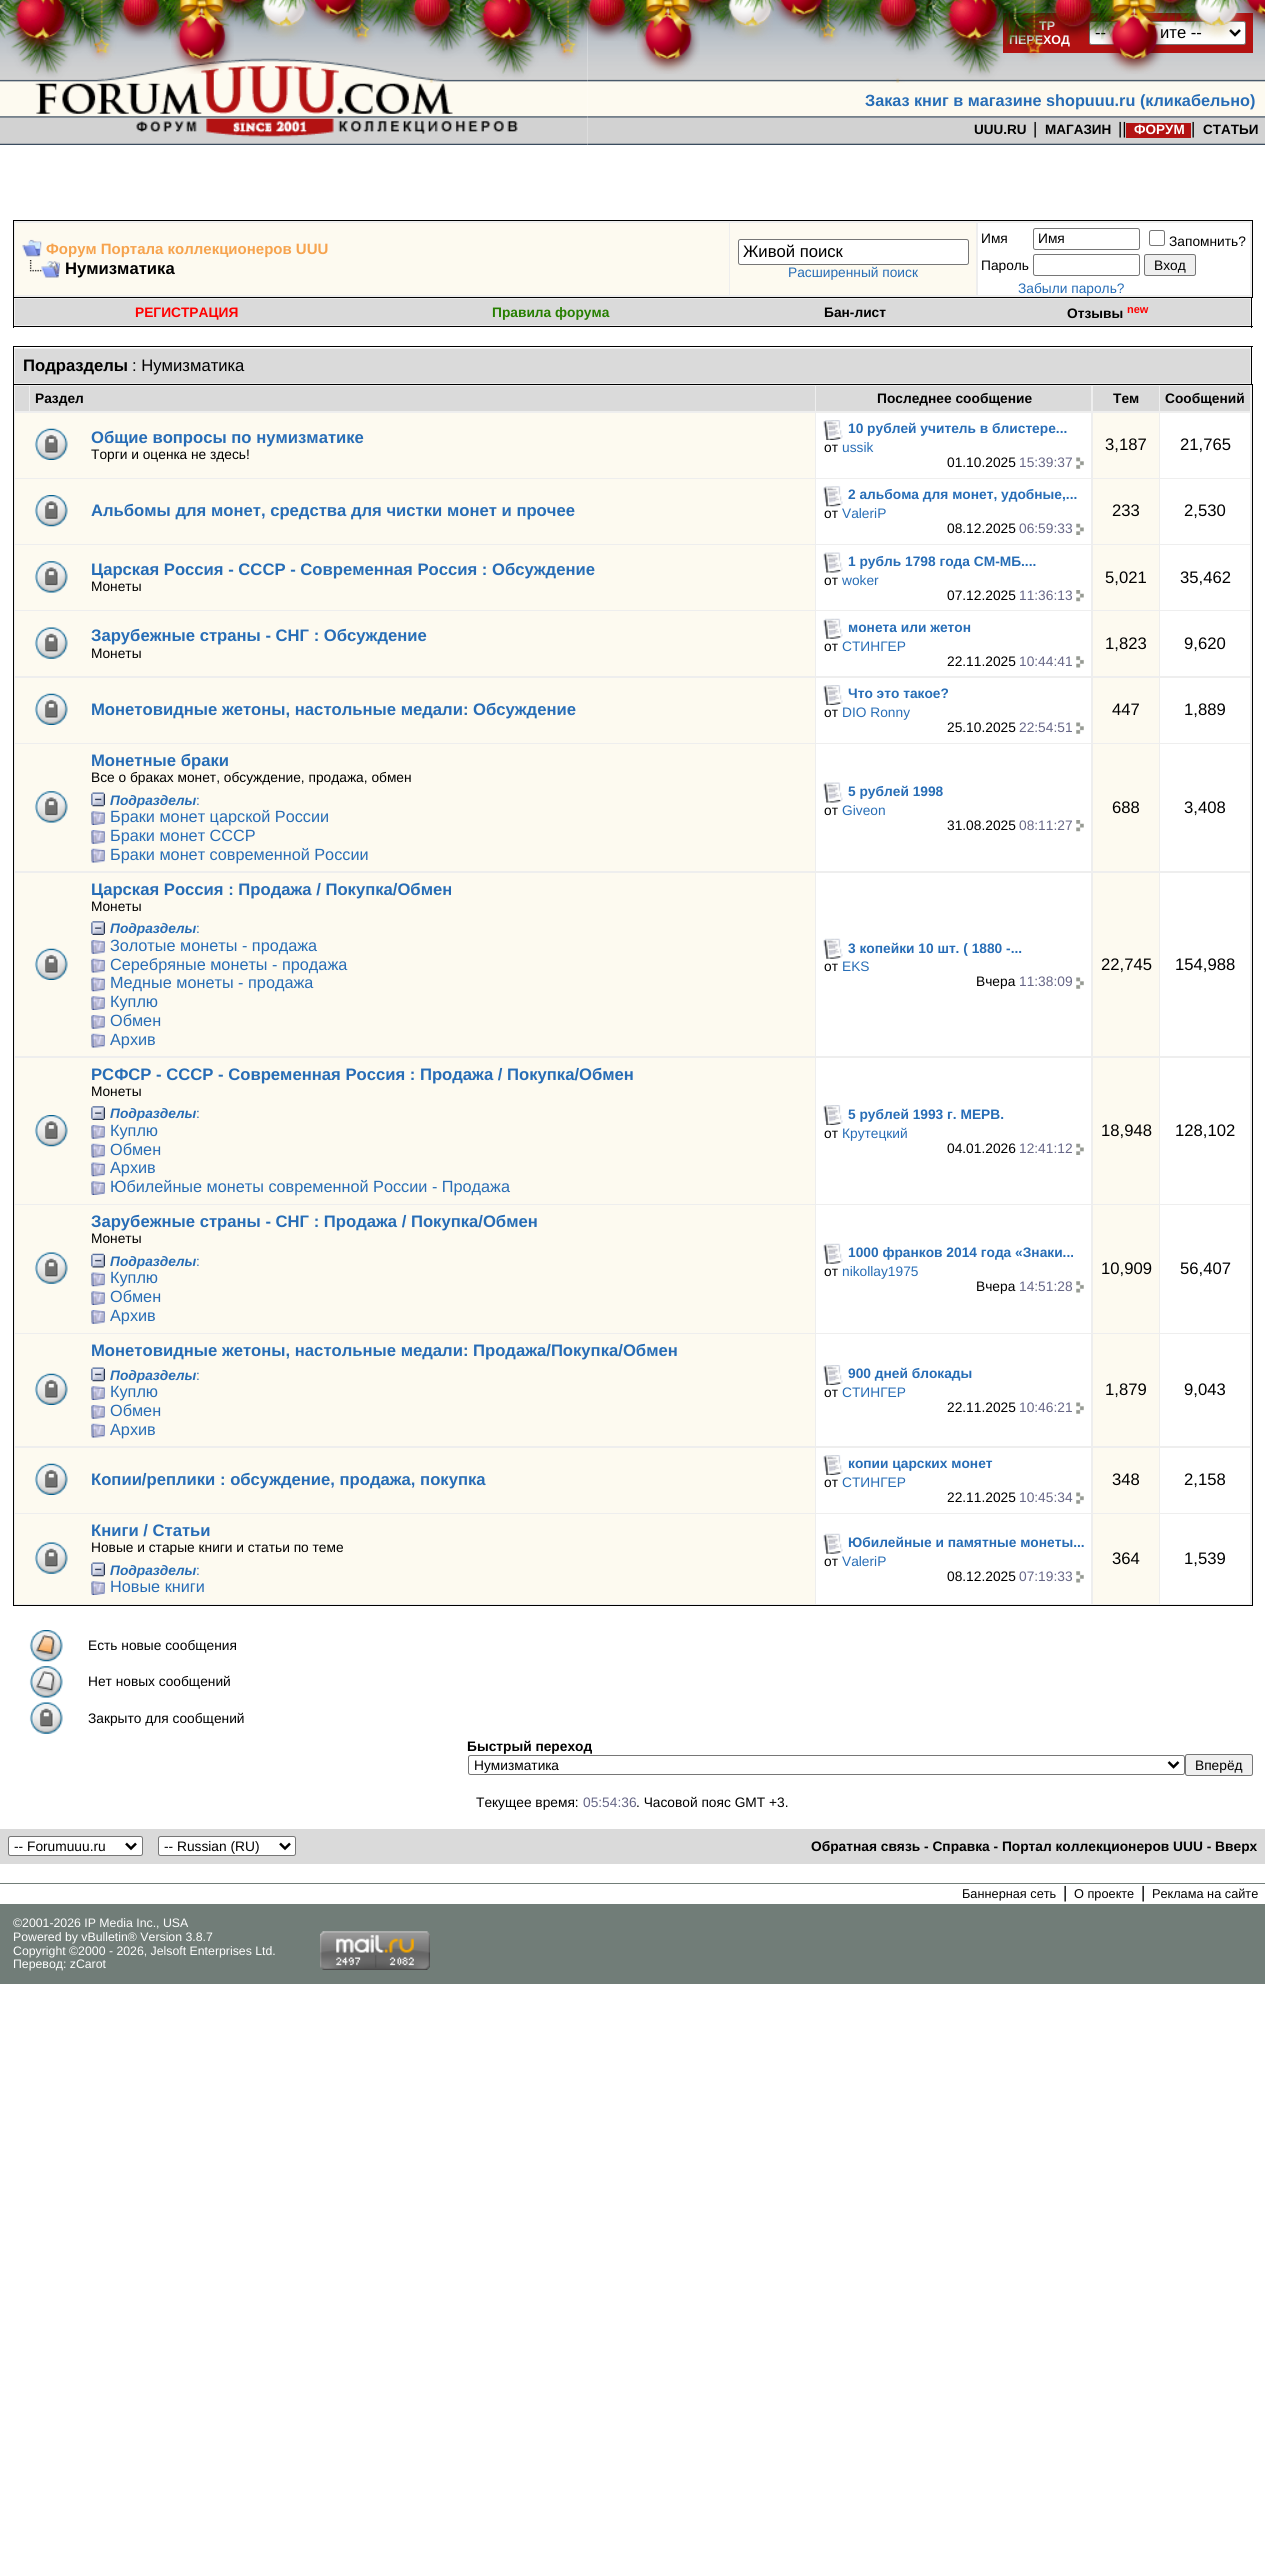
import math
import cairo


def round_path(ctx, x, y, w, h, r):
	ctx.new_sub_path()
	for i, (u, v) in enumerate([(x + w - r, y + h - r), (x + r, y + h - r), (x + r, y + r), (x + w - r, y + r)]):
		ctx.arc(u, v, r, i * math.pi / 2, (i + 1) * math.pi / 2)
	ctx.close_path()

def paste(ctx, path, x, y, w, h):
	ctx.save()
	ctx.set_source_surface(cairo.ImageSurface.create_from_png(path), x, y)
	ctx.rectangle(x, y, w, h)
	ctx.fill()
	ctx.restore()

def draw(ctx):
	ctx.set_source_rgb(1, 1, 1)
	ctx.paint()
	paste(ctx, 'media/2.png', 587, 0, 678, 145)
	ctx.set_source_rgb(0.702, 0.071, 0.071)
	ctx.rectangle(1003, 13, 250, 40)
	ctx.fill()
	ctx.select_font_face('Liberation Sans', cairo.FONT_SLANT_NORMAL, cairo.FONT_WEIGHT_BOLD)
	ctx.set_font_size(12.5)
	ctx.set_source_rgb(1, 1, 1)
	ctx.move_to(1039, 30)
	ctx.show_text('ТР')
	ctx.move_to(1009, 44)
	ctx.show_text('ПЕРЕХОД')
	round_path(ctx, 1089.5, 21.5, 156, 23, 2)
	ctx.fill_preserve()
	ctx.set_source_rgb(0.463, 0.463, 0.463)
	ctx.set_line_width(1)
	ctx.stroke()
	ctx.new_path()
	ctx.move_to(1230, 30)
	ctx.line_to(1235, 35)
	ctx.line_to(1240, 30)
	ctx.set_source_rgb(0, 0, 0)
	ctx.set_line_width(2.5)
	ctx.stroke()
	ctx.select_font_face('Liberation Sans')
	ctx.set_font_size(16.65)
	ctx.move_to(1095, 38)
	ctx.show_text('--')
	ctx.move_to(1160, 38)
	ctx.show_text('ите --')
	paste(ctx, 'media/1.png', 0, 0, 588, 145)
	ctx.select_font_face('Liberation Sans', cairo.FONT_SLANT_NORMAL, cairo.FONT_WEIGHT_BOLD)
	ctx.set_font_size(16.25)
	ctx.set_source_rgb(0.153, 0.427, 0.714)
	ctx.move_to(865, 106)
	ctx.show_text('Заказ книг в магазине shopuuu.ru (кликабельно)')
	ctx.set_font_size(13.5)
	ctx.set_source_rgb(0, 0, 0)
	ctx.move_to(974, 134)
	ctx.show_text('UUU.RU')
	ctx.select_font_face('Liberation Sans')
	ctx.set_font_size(16.65)
	ctx.move_to(1033, 134)
	ctx.show_text('|')
	ctx.select_font_face('Liberation Sans', cairo.FONT_SLANT_NORMAL, cairo.FONT_WEIGHT_BOLD)
	ctx.set_font_size(13.5)
	ctx.move_to(1045, 134)
	ctx.show_text('МАГАЗИН')
	ctx.select_font_face('Liberation Sans')
	ctx.set_font_size(16.65)
	ctx.move_to(1118, 134)
	ctx.show_text('||')
	ctx.set_source_rgb(0.702, 0.071, 0.071)
	ctx.rectangle(1126, 123, 65, 15)
	ctx.fill()
	ctx.select_font_face('Liberation Sans', cairo.FONT_SLANT_NORMAL, cairo.FONT_WEIGHT_BOLD)
	ctx.set_font_size(13.5)
	ctx.set_source_rgb(1, 1, 1)
	ctx.move_to(1134, 134)
	ctx.show_text('ФОРУМ')
	ctx.select_font_face('Liberation Sans')
	ctx.set_font_size(16.65)
	ctx.set_source_rgb(0, 0, 0)
	ctx.move_to(1191, 134)
	ctx.show_text('|')
	ctx.select_font_face('Liberation Sans', cairo.FONT_SLANT_NORMAL, cairo.FONT_WEIGHT_BOLD)
	ctx.set_font_size(13.5)
	ctx.move_to(1203, 134)
	ctx.show_text('СТАТЬИ')
	paste(ctx, 'media/3.png', 0, 0, 1265, 83)
	paste(ctx, 'media/5.png', 8, 0, 65, 52)
	paste(ctx, 'media/4.png', 0, 0, 30, 39)
	paste(ctx, 'media/6.png', 77, 0, 43, 9)
	paste(ctx, 'media/7.png', 115, 0, 51, 41)
	paste(ctx, 'media/8.png', 171, 0, 63, 74)
	paste(ctx, 'media/9.png', 214, 0, 47, 17)
	paste(ctx, 'media/10.png', 255, 0, 52, 40)
	paste(ctx, 'media/12.png', 304, 0, 61, 29)
	paste(ctx, 'media/11.png', 268, 0, 50, 13)
	paste(ctx, 'media/13.png', 367, 0, 43, 11)
	paste(ctx, 'media/14.png', 407, 0, 50, 41)
	paste(ctx, 'media/15.png', 458, 0, 9, 36)
	paste(ctx, 'media/17.png', 474, 0, 65, 52)
	paste(ctx, 'media/16.png', 466, 0, 31, 39)
	paste(ctx, 'media/18.png', 543, 0, 43, 9)
	paste(ctx, 'media/19.png', 581, 0, 51, 41)
	paste(ctx, 'media/20.png', 637, 0, 63, 74)
	paste(ctx, 'media/21.png', 680, 0, 47, 17)
	paste(ctx, 'media/22.png', 721, 0, 52, 40)
	paste(ctx, 'media/24.png', 771, 0, 60, 29)
	paste(ctx, 'media/23.png', 734, 0, 50, 13)
	paste(ctx, 'media/25.png', 832, 0, 44, 11)
	paste(ctx, 'media/26.png', 873, 0, 51, 41)
	paste(ctx, 'media/27.png', 925, 0, 8, 36)
	paste(ctx, 'media/29.png', 941, 0, 63, 52)
	paste(ctx, 'media/28.png', 932, 0, 31, 39)
	paste(ctx, 'media/30.png', 1009, 0, 43, 9)
	paste(ctx, 'media/31.png', 1048, 0, 50, 41)
	paste(ctx, 'media/32.png', 1103, 0, 63, 74)
	paste(ctx, 'media/33.png', 1146, 0, 47, 15)
	paste(ctx, 'media/34.png', 1188, 0, 57, 40)
	paste(ctx, 'media/36.png', 1237, 0, 28, 29)
	paste(ctx, 'media/35.png', 1201, 0, 49, 13)
	ctx.set_source_rgb(0.933, 0.933, 0.933)
	ctx.rectangle(13.5, 220.5, 1239, 77)
	ctx.fill_preserve()
	ctx.set_source_rgb(0, 0, 0)
	ctx.set_line_width(1)
	ctx.stroke()
	ctx.set_source_rgb(0.992, 0.98, 0.941)
	ctx.rectangle(15, 223, 714, 72)
	ctx.fill()
	paste(ctx, 'media/37.png', 22, 239, 20, 18)
	ctx.set_font_size(15)
	ctx.set_source_rgb(0.961, 0.639, 0.306)
	ctx.move_to(46, 254)
	ctx.show_text('Форум Портала коллекционеров UUU')
	paste(ctx, 'media/38.png', 29, 260, 31, 18)
	ctx.set_font_size(16.65)
	ctx.set_source_rgb(0, 0, 0)
	ctx.move_to(65, 274)
	ctx.show_text('Нумизматика')
	ctx.set_source_rgb(0.992, 0.98, 0.941)
	ctx.rectangle(730, 223, 246, 72)
	ctx.fill()
	ctx.set_source_rgb(1, 1, 1)
	round_path(ctx, 738.5, 239.5, 230, 25, 2)
	ctx.fill_preserve()
	ctx.set_source_rgb(0.463, 0.463, 0.463)
	ctx.stroke()
	ctx.select_font_face('Liberation Sans')
	ctx.set_source_rgb(0, 0, 0)
	ctx.move_to(743, 257)
	ctx.show_text('Живой поиск')
	ctx.set_font_size(13.75)
	ctx.set_source_rgb(0.153, 0.427, 0.714)
	ctx.move_to(788, 277)
	ctx.show_text('Расширенный поиск')
	ctx.set_source_rgb(1, 1, 1)
	ctx.rectangle(978, 223, 272, 72)
	ctx.fill()
	ctx.set_source_rgb(0, 0, 0)
	ctx.move_to(981, 243)
	ctx.show_text('Имя')
	round_path(ctx, 1033.5, 228.5, 106, 21, 2)
	ctx.set_source_rgb(0.463, 0.463, 0.463)
	ctx.stroke()
	ctx.set_source_rgb(0, 0, 0)
	ctx.move_to(1038, 243)
	ctx.show_text('Имя')
	round_path(ctx, 1149.5, 230.5, 15, 15, 2)
	ctx.set_source_rgb(0.463, 0.463, 0.463)
	ctx.stroke()
	ctx.set_source_rgb(0, 0, 0)
	ctx.move_to(1169, 246)
	ctx.show_text('Запомнить?')
	ctx.move_to(981, 270)
	ctx.show_text('Пароль')
	round_path(ctx, 1033.5, 254.5, 106, 21, 2)
	ctx.set_source_rgb(0.463, 0.463, 0.463)
	ctx.stroke()
	ctx.set_source_rgb(0.937, 0.937, 0.937)
	round_path(ctx, 1144.5, 254.5, 51, 21, 2)
	ctx.fill_preserve()
	ctx.set_source_rgb(0.463, 0.463, 0.463)
	ctx.stroke()
	ctx.set_source_rgb(0, 0, 0)
	ctx.move_to(1154, 270)
	ctx.show_text('Вход')
	ctx.set_source_rgb(0.153, 0.427, 0.714)
	ctx.move_to(1018, 293)
	ctx.show_text('Забыли пароль?')
	ctx.set_source_rgb(0.933, 0.933, 0.933)
	ctx.rectangle(14, 298, 1237, 28)
	ctx.fill()
	ctx.set_source_rgb(0, 0, 0)
	ctx.rectangle(1251, 298, 1, 30)
	ctx.rectangle(13, 326, 1240, 1)
	ctx.rectangle(13, 298, 1, 30)
	ctx.fill()
	ctx.set_source_rgb(0.855, 0.855, 0.855)
	ctx.rectangle(15, 299, 1235, 26)
	ctx.fill()
	ctx.select_font_face('Liberation Sans', cairo.FONT_SLANT_NORMAL, cairo.FONT_WEIGHT_BOLD)
	ctx.set_source_rgb(1, 0, 0)
	ctx.move_to(135, 317)
	ctx.show_text('РЕГИСТРАЦИЯ')
	ctx.set_source_rgb(0.149, 0.498, 0)
	ctx.move_to(492, 317)
	ctx.show_text('Правила форума')
	ctx.set_source_rgb(0, 0, 0)
	ctx.move_to(824, 317)
	ctx.show_text('Бан-лист')
	ctx.move_to(1067, 318)
	ctx.show_text('Отзывы')
	ctx.set_font_size(11)
	ctx.set_source_rgb(1, 0, 0)
	ctx.move_to(1127, 313)
	ctx.show_text('new')
	ctx.set_source_rgb(0.933, 0.933, 0.933)
	ctx.rectangle(14, 348, 1237, 36)
	ctx.fill()
	ctx.set_source_rgb(0, 0, 0)
	ctx.rectangle(13, 346, 1240, 1)
	ctx.rectangle(1251, 346, 1, 38)
	ctx.rectangle(13, 346, 1, 38)
	ctx.fill()
	ctx.set_source_rgb(0.855, 0.855, 0.855)
	ctx.rectangle(15, 349, 1235, 34)
	ctx.fill()
	ctx.set_font_size(16.65)
	ctx.set_source_rgb(0, 0, 0)
	ctx.move_to(23, 371)
	ctx.show_text('Подразделы')
	ctx.select_font_face('Liberation Sans')
	ctx.move_to(132, 371)
	ctx.show_text(': Нумизматика')
	ctx.set_source_rgb(0.933, 0.933, 0.933)
	ctx.rectangle(13.5, 384.5, 1239, 1221)
	ctx.fill_preserve()
	ctx.set_source_rgb(0, 0, 0)
	ctx.stroke()
	ctx.set_source_rgb(0.855, 0.855, 0.855)
	ctx.rectangle(15, 386, 14, 25)
	ctx.fill()
	ctx.rectangle(30, 386, 785, 25)
	ctx.fill()
	ctx.select_font_face('Liberation Sans', cairo.FONT_SLANT_NORMAL, cairo.FONT_WEIGHT_BOLD)
	ctx.set_font_size(13.75)
	ctx.set_source_rgb(0, 0, 0)
	ctx.move_to(35, 403)
	ctx.show_text('Раздел')
	ctx.set_source_rgb(0.855, 0.855, 0.855)
	ctx.rectangle(816, 386, 275, 25)
	ctx.fill()
	ctx.set_source_rgb(0, 0, 0)
	ctx.move_to(877, 403)
	ctx.show_text('Последнее сообщение')
	ctx.set_source_rgb(0.855, 0.855, 0.855)
	ctx.rectangle(1093, 386, 66, 25)
	ctx.fill()
	ctx.set_source_rgb(0, 0, 0)
	ctx.move_to(1113, 403)
	ctx.show_text('Тем')
	ctx.set_source_rgb(0.855, 0.855, 0.855)
	ctx.rectangle(1160, 386, 90, 25)
	ctx.fill()
	ctx.set_source_rgb(0, 0, 0)
	ctx.move_to(1165, 403)
	ctx.show_text('Сообщений')
	ctx.set_source_rgb(0.992, 0.98, 0.941)
	ctx.rectangle(15, 413, 800, 65)
	ctx.fill()
	paste(ctx, 'media/39.png', 34, 428, 34, 32)
	ctx.set_font_size(16.65)
	ctx.set_source_rgb(0.153, 0.427, 0.714)
	ctx.move_to(91, 443)
	ctx.show_text('Общие вопросы по нумизматике')
	ctx.select_font_face('Liberation Sans')
	ctx.set_font_size(13.75)
	ctx.set_source_rgb(0, 0, 0)
	ctx.move_to(91, 459)
	ctx.show_text('Торги и оценка не здесь!')
	ctx.set_source_rgb(1, 1, 1)
	ctx.rectangle(816, 413, 275, 65)
	ctx.fill()
	paste(ctx, 'media/40.png', 823, 420, 20, 20)
	ctx.select_font_face('Liberation Sans', cairo.FONT_SLANT_NORMAL, cairo.FONT_WEIGHT_BOLD)
	ctx.set_source_rgb(0.153, 0.427, 0.714)
	ctx.move_to(848, 433)
	ctx.show_text('10 рублей учитель в блистере...')
	ctx.select_font_face('Liberation Sans')
	ctx.set_source_rgb(0, 0, 0)
	ctx.move_to(824, 452)
	ctx.show_text('от')
	ctx.set_source_rgb(0.153, 0.427, 0.714)
	ctx.move_to(842, 452)
	ctx.show_text('ussik')
	ctx.set_source_rgb(0, 0, 0)
	ctx.move_to(947, 467)
	ctx.show_text('01.10.2025')
	ctx.set_source_rgb(0.4, 0.4, 0.525)
	ctx.move_to(1019, 467)
	ctx.show_text('15:39:37')
	paste(ctx, 'media/41.png', 1076, 457, 8, 12)
	ctx.set_source_rgb(0.992, 0.98, 0.941)
	ctx.rectangle(1093, 413, 66, 65)
	ctx.fill()
	ctx.set_font_size(16.65)
	ctx.set_source_rgb(0, 0, 0)
	ctx.move_to(1105, 450)
	ctx.show_text('3,187')
	ctx.set_source_rgb(1, 1, 1)
	ctx.rectangle(1160, 413, 90, 65)
	ctx.fill()
	ctx.set_source_rgb(0, 0, 0)
	ctx.move_to(1180, 450)
	ctx.show_text('21,765')
	ctx.set_source_rgb(0.992, 0.98, 0.941)
	ctx.rectangle(15, 479, 800, 65)
	ctx.fill()
	paste(ctx, 'media/42.png', 34, 495, 34, 32)
	ctx.select_font_face('Liberation Sans', cairo.FONT_SLANT_NORMAL, cairo.FONT_WEIGHT_BOLD)
	ctx.set_source_rgb(0.153, 0.427, 0.714)
	ctx.move_to(91, 516)
	ctx.show_text('Альбомы для монет, средства для чистки монет и прочее')
	ctx.set_source_rgb(1, 1, 1)
	ctx.rectangle(816, 479, 275, 65)
	ctx.fill()
	paste(ctx, 'media/43.png', 823, 486, 20, 21)
	ctx.set_font_size(13.75)
	ctx.set_source_rgb(0.153, 0.427, 0.714)
	ctx.move_to(848, 499)
	ctx.show_text('2 альбома для монет, удобные,...')
	ctx.select_font_face('Liberation Sans')
	ctx.set_source_rgb(0, 0, 0)
	ctx.move_to(824, 518)
	ctx.show_text('от')
	ctx.set_source_rgb(0.153, 0.427, 0.714)
	ctx.move_to(842, 518)
	ctx.show_text('ValeriP')
	ctx.set_source_rgb(0, 0, 0)
	ctx.move_to(947, 533)
	ctx.show_text('08.12.2025')
	ctx.set_source_rgb(0.4, 0.4, 0.525)
	ctx.move_to(1019, 533)
	ctx.show_text('06:59:33')
	paste(ctx, 'media/44.png', 1076, 523, 8, 12)
	ctx.set_source_rgb(0.992, 0.98, 0.941)
	ctx.rectangle(1093, 479, 66, 65)
	ctx.fill()
	ctx.set_font_size(16.65)
	ctx.set_source_rgb(0, 0, 0)
	ctx.move_to(1112, 516)
	ctx.show_text('233')
	ctx.set_source_rgb(1, 1, 1)
	ctx.rectangle(1160, 479, 90, 65)
	ctx.fill()
	ctx.set_source_rgb(0, 0, 0)
	ctx.move_to(1184, 516)
	ctx.show_text('2,530')
	ctx.set_source_rgb(0.992, 0.98, 0.941)
	ctx.rectangle(15, 545, 800, 65)
	ctx.fill()
	paste(ctx, 'media/45.png', 34, 561, 34, 32)
	ctx.select_font_face('Liberation Sans', cairo.FONT_SLANT_NORMAL, cairo.FONT_WEIGHT_BOLD)
	ctx.set_source_rgb(0.153, 0.427, 0.714)
	ctx.move_to(91, 575)
	ctx.show_text('Царская Россия - СССР - Современная Россия : Обсуждение')
	ctx.select_font_face('Liberation Sans')
	ctx.set_font_size(13.75)
	ctx.set_source_rgb(0, 0, 0)
	ctx.move_to(91, 591)
	ctx.show_text('Монеты')
	ctx.set_source_rgb(1, 1, 1)
	ctx.rectangle(816, 545, 275, 65)
	ctx.fill()
	paste(ctx, 'media/46.png', 823, 552, 20, 21)
	ctx.select_font_face('Liberation Sans', cairo.FONT_SLANT_NORMAL, cairo.FONT_WEIGHT_BOLD)
	ctx.set_source_rgb(0.153, 0.427, 0.714)
	ctx.move_to(848, 566)
	ctx.show_text('1 рубль 1798 года СМ-МБ....')
	ctx.select_font_face('Liberation Sans')
	ctx.set_source_rgb(0, 0, 0)
	ctx.move_to(824, 585)
	ctx.show_text('от')
	ctx.set_source_rgb(0.153, 0.427, 0.714)
	ctx.move_to(842, 585)
	ctx.show_text('woker')
	ctx.set_source_rgb(0, 0, 0)
	ctx.move_to(947, 600)
	ctx.show_text('07.12.2025')
	ctx.set_source_rgb(0.4, 0.4, 0.525)
	ctx.move_to(1019, 600)
	ctx.show_text('11:36:13')
	paste(ctx, 'media/47.png', 1076, 590, 8, 12)
	ctx.set_source_rgb(0.992, 0.98, 0.941)
	ctx.rectangle(1093, 545, 66, 65)
	ctx.fill()
	ctx.set_font_size(16.65)
	ctx.set_source_rgb(0, 0, 0)
	ctx.move_to(1105, 583)
	ctx.show_text('5,021')
	ctx.set_source_rgb(1, 1, 1)
	ctx.rectangle(1160, 545, 90, 65)
	ctx.fill()
	ctx.set_source_rgb(0, 0, 0)
	ctx.move_to(1180, 583)
	ctx.show_text('35,462')
	ctx.set_source_rgb(0.992, 0.98, 0.941)
	ctx.rectangle(15, 611, 800, 65)
	ctx.fill()
	paste(ctx, 'media/48.png', 34, 627, 34, 32)
	ctx.select_font_face('Liberation Sans', cairo.FONT_SLANT_NORMAL, cairo.FONT_WEIGHT_BOLD)
	ctx.set_source_rgb(0.153, 0.427, 0.714)
	ctx.move_to(91, 641)
	ctx.show_text('Зарубежные страны - СНГ : Обсуждение')
	ctx.select_font_face('Liberation Sans')
	ctx.set_font_size(13.75)
	ctx.set_source_rgb(0, 0, 0)
	ctx.move_to(91, 658)
	ctx.show_text('Монеты')
	ctx.set_source_rgb(1, 1, 1)
	ctx.rectangle(816, 611, 275, 65)
	ctx.fill()
	paste(ctx, 'media/49.png', 823, 618, 20, 21)
	ctx.select_font_face('Liberation Sans', cairo.FONT_SLANT_NORMAL, cairo.FONT_WEIGHT_BOLD)
	ctx.set_source_rgb(0.153, 0.427, 0.714)
	ctx.move_to(848, 632)
	ctx.show_text('монета или жетон')
	ctx.select_font_face('Liberation Sans')
	ctx.set_source_rgb(0, 0, 0)
	ctx.move_to(824, 651)
	ctx.show_text('от')
	ctx.set_source_rgb(0.153, 0.427, 0.714)
	ctx.move_to(842, 651)
	ctx.show_text('СТИНГЕР')
	ctx.set_source_rgb(0, 0, 0)
	ctx.move_to(947, 666)
	ctx.show_text('22.11.2025')
	ctx.set_source_rgb(0.4, 0.4, 0.525)
	ctx.move_to(1019, 666)
	ctx.show_text('10:44:41')
	paste(ctx, 'media/50.png', 1076, 656, 8, 12)
	ctx.set_source_rgb(0.992, 0.98, 0.941)
	ctx.rectangle(1093, 611, 66, 65)
	ctx.fill()
	ctx.set_font_size(16.65)
	ctx.set_source_rgb(0, 0, 0)
	ctx.move_to(1105, 649)
	ctx.show_text('1,823')
	ctx.set_source_rgb(1, 1, 1)
	ctx.rectangle(1160, 611, 90, 65)
	ctx.fill()
	ctx.set_source_rgb(0, 0, 0)
	ctx.move_to(1184, 649)
	ctx.show_text('9,620')
	ctx.set_source_rgb(0.992, 0.98, 0.941)
	ctx.rectangle(15, 678, 800, 65)
	ctx.fill()
	paste(ctx, 'media/39.png', 34, 693, 34, 32)
	ctx.select_font_face('Liberation Sans', cairo.FONT_SLANT_NORMAL, cairo.FONT_WEIGHT_BOLD)
	ctx.set_source_rgb(0.153, 0.427, 0.714)
	ctx.move_to(91, 715)
	ctx.show_text('Монетовидные жетоны, настольные медали: Обсуждение')
	ctx.set_source_rgb(1, 1, 1)
	ctx.rectangle(816, 678, 275, 65)
	ctx.fill()
	paste(ctx, 'media/40.png', 823, 685, 20, 20)
	ctx.set_font_size(13.75)
	ctx.set_source_rgb(0.153, 0.427, 0.714)
	ctx.move_to(848, 698)
	ctx.show_text('Что это такое?')
	ctx.select_font_face('Liberation Sans')
	ctx.set_source_rgb(0, 0, 0)
	ctx.move_to(824, 717)
	ctx.show_text('от')
	ctx.set_source_rgb(0.153, 0.427, 0.714)
	ctx.move_to(842, 717)
	ctx.show_text('DIO Ronny')
	ctx.set_source_rgb(0, 0, 0)
	ctx.move_to(947, 732)
	ctx.show_text('25.10.2025')
	ctx.set_source_rgb(0.4, 0.4, 0.525)
	ctx.move_to(1019, 732)
	ctx.show_text('22:54:51')
	paste(ctx, 'media/41.png', 1076, 722, 8, 12)
	ctx.set_source_rgb(0.992, 0.98, 0.941)
	ctx.rectangle(1093, 678, 66, 65)
	ctx.fill()
	ctx.set_font_size(16.65)
	ctx.set_source_rgb(0, 0, 0)
	ctx.move_to(1112, 715)
	ctx.show_text('447')
	ctx.set_source_rgb(1, 1, 1)
	ctx.rectangle(1160, 678, 90, 65)
	ctx.fill()
	ctx.set_source_rgb(0, 0, 0)
	ctx.move_to(1184, 715)
	ctx.show_text('1,889')
	ctx.set_source_rgb(0.992, 0.98, 0.941)
	ctx.rectangle(15, 744, 800, 127)
	ctx.fill()
	paste(ctx, 'media/45.png', 34, 791, 34, 32)
	ctx.select_font_face('Liberation Sans', cairo.FONT_SLANT_NORMAL, cairo.FONT_WEIGHT_BOLD)
	ctx.set_source_rgb(0.153, 0.427, 0.714)
	ctx.move_to(91, 766)
	ctx.show_text('Монетные браки')
	ctx.select_font_face('Liberation Sans')
	ctx.set_font_size(13.75)
	ctx.set_source_rgb(0, 0, 0)
	ctx.move_to(91, 782)
	ctx.show_text('Все о браках монет, обсуждение, продажа, обмен')
	paste(ctx, 'media/51.png', 91, 792, 14, 15)
	ctx.select_font_face('Liberation Sans', cairo.FONT_SLANT_ITALIC, cairo.FONT_WEIGHT_BOLD)
	ctx.set_source_rgb(0.153, 0.427, 0.714)
	ctx.move_to(110, 805)
	ctx.show_text('Подразделы')
	ctx.select_font_face('Liberation Sans')
	ctx.move_to(196, 805)
	ctx.show_text(':')
	paste(ctx, 'media/52.png', 91, 811, 14, 14)
	ctx.set_font_size(16.25)
	ctx.move_to(110, 822)
	ctx.show_text('Браки монет царской России')
	paste(ctx, 'media/53.png', 91, 830, 14, 14)
	ctx.move_to(110, 841)
	ctx.show_text('Браки монет СССР')
	paste(ctx, 'media/54.png', 91, 848, 14, 15)
	ctx.move_to(110, 860)
	ctx.show_text('Браки монет современной России')
	ctx.set_source_rgb(1, 1, 1)
	ctx.rectangle(816, 744, 275, 127)
	ctx.fill()
	paste(ctx, 'media/46.png', 823, 782, 20, 21)
	ctx.select_font_face('Liberation Sans', cairo.FONT_SLANT_NORMAL, cairo.FONT_WEIGHT_BOLD)
	ctx.set_font_size(13.75)
	ctx.set_source_rgb(0.153, 0.427, 0.714)
	ctx.move_to(848, 796)
	ctx.show_text('5 рублей 1998')
	ctx.select_font_face('Liberation Sans')
	ctx.set_source_rgb(0, 0, 0)
	ctx.move_to(824, 815)
	ctx.show_text('от')
	ctx.set_source_rgb(0.153, 0.427, 0.714)
	ctx.move_to(842, 815)
	ctx.show_text('Giveon')
	ctx.set_source_rgb(0, 0, 0)
	ctx.move_to(947, 830)
	ctx.show_text('31.08.2025')
	ctx.set_source_rgb(0.4, 0.4, 0.525)
	ctx.move_to(1019, 830)
	ctx.show_text('08:11:27')
	paste(ctx, 'media/47.png', 1076, 820, 8, 12)
	ctx.set_source_rgb(0.992, 0.98, 0.941)
	ctx.rectangle(1093, 744, 66, 127)
	ctx.fill()
	ctx.set_font_size(16.65)
	ctx.set_source_rgb(0, 0, 0)
	ctx.move_to(1112, 813)
	ctx.show_text('688')
	ctx.set_source_rgb(1, 1, 1)
	ctx.rectangle(1160, 744, 90, 127)
	ctx.fill()
	ctx.set_source_rgb(0, 0, 0)
	ctx.move_to(1184, 813)
	ctx.show_text('3,408')
	ctx.set_source_rgb(0.992, 0.98, 0.941)
	ctx.rectangle(15, 873, 800, 183)
	ctx.fill()
	paste(ctx, 'media/39.png', 34, 948, 34, 32)
	ctx.select_font_face('Liberation Sans', cairo.FONT_SLANT_NORMAL, cairo.FONT_WEIGHT_BOLD)
	ctx.set_source_rgb(0.153, 0.427, 0.714)
	ctx.move_to(91, 895)
	ctx.show_text('Царская Россия : Продажа / Покупка/Обмен')
	ctx.select_font_face('Liberation Sans')
	ctx.set_font_size(13.75)
	ctx.set_source_rgb(0, 0, 0)
	ctx.move_to(91, 911)
	ctx.show_text('Монеты')
	paste(ctx, 'media/55.png', 91, 921, 14, 14)
	ctx.select_font_face('Liberation Sans', cairo.FONT_SLANT_ITALIC, cairo.FONT_WEIGHT_BOLD)
	ctx.set_source_rgb(0.153, 0.427, 0.714)
	ctx.move_to(110, 933)
	ctx.show_text('Подразделы')
	ctx.select_font_face('Liberation Sans')
	ctx.move_to(196, 933)
	ctx.show_text(':')
	paste(ctx, 'media/53.png', 91, 940, 14, 14)
	ctx.set_font_size(16.25)
	ctx.move_to(110, 951)
	ctx.show_text('Золотые монеты - продажа')
	paste(ctx, 'media/54.png', 91, 958, 14, 15)
	ctx.move_to(110, 970)
	ctx.show_text('Серебряные монеты - продажа')
	paste(ctx, 'media/56.png', 91, 977, 14, 15)
	ctx.move_to(110, 988)
	ctx.show_text('Медные монеты - продажа')
	paste(ctx, 'media/52.png', 91, 996, 14, 14)
	ctx.move_to(110, 1007)
	ctx.show_text('Куплю')
	paste(ctx, 'media/53.png', 91, 1015, 14, 14)
	ctx.move_to(110, 1026)
	ctx.show_text('Обмен')
	paste(ctx, 'media/54.png', 91, 1033, 14, 15)
	ctx.move_to(110, 1045)
	ctx.show_text('Архив')
	ctx.set_source_rgb(1, 1, 1)
	ctx.rectangle(816, 873, 275, 183)
	ctx.fill()
	paste(ctx, 'media/49.png', 823, 938, 20, 21)
	ctx.select_font_face('Liberation Sans', cairo.FONT_SLANT_NORMAL, cairo.FONT_WEIGHT_BOLD)
	ctx.set_font_size(13.75)
	ctx.set_source_rgb(0.153, 0.427, 0.714)
	ctx.move_to(848, 953)
	ctx.show_text('3 копейки 10 шт. ( 1880 -...')
	ctx.select_font_face('Liberation Sans')
	ctx.set_source_rgb(0, 0, 0)
	ctx.move_to(824, 971)
	ctx.show_text('от')
	ctx.set_source_rgb(0.153, 0.427, 0.714)
	ctx.move_to(842, 971)
	ctx.show_text('EKS')
	ctx.set_source_rgb(0, 0, 0)
	ctx.move_to(976, 986)
	ctx.show_text('Вчера')
	ctx.set_source_rgb(0.4, 0.4, 0.525)
	ctx.move_to(1019, 986)
	ctx.show_text('11:38:09')
	paste(ctx, 'media/41.png', 1076, 977, 8, 12)
	ctx.set_source_rgb(0.992, 0.98, 0.941)
	ctx.rectangle(1093, 873, 66, 183)
	ctx.fill()
	ctx.set_font_size(16.65)
	ctx.set_source_rgb(0, 0, 0)
	ctx.move_to(1101, 970)
	ctx.show_text('22,745')
	ctx.set_source_rgb(1, 1, 1)
	ctx.rectangle(1160, 873, 90, 183)
	ctx.fill()
	ctx.set_source_rgb(0, 0, 0)
	ctx.move_to(1175, 970)
	ctx.show_text('154,988')
	ctx.set_source_rgb(0.992, 0.98, 0.941)
	ctx.rectangle(15, 1058, 800, 146)
	ctx.fill()
	paste(ctx, 'media/42.png', 34, 1115, 34, 32)
	ctx.select_font_face('Liberation Sans', cairo.FONT_SLANT_NORMAL, cairo.FONT_WEIGHT_BOLD)
	ctx.set_source_rgb(0.153, 0.427, 0.714)
	ctx.move_to(91, 1080)
	ctx.show_text('РСФСР - СССР - Современная Россия : Продажа / Покупка/Обмен')
	ctx.select_font_face('Liberation Sans')
	ctx.set_font_size(13.75)
	ctx.set_source_rgb(0, 0, 0)
	ctx.move_to(91, 1096)
	ctx.show_text('Монеты')
	paste(ctx, 'media/55.png', 91, 1106, 14, 14)
	ctx.select_font_face('Liberation Sans', cairo.FONT_SLANT_ITALIC, cairo.FONT_WEIGHT_BOLD)
	ctx.set_source_rgb(0.153, 0.427, 0.714)
	ctx.move_to(110, 1118)
	ctx.show_text('Подразделы')
	ctx.select_font_face('Liberation Sans')
	ctx.move_to(196, 1118)
	ctx.show_text(':')
	paste(ctx, 'media/53.png', 91, 1125, 14, 14)
	ctx.set_font_size(16.25)
	ctx.move_to(110, 1136)
	ctx.show_text('Куплю')
	paste(ctx, 'media/54.png', 91, 1143, 14, 15)
	ctx.move_to(110, 1155)
	ctx.show_text('Обмен')
	paste(ctx, 'media/56.png', 91, 1162, 14, 15)
	ctx.move_to(110, 1173)
	ctx.show_text('Архив')
	paste(ctx, 'media/52.png', 91, 1181, 14, 14)
	ctx.move_to(110, 1192)
	ctx.show_text('Юбилейные монеты современной России - Продажа')
	ctx.set_source_rgb(1, 1, 1)
	ctx.rectangle(816, 1058, 275, 146)
	ctx.fill()
	paste(ctx, 'media/40.png', 823, 1105, 20, 20)
	ctx.select_font_face('Liberation Sans', cairo.FONT_SLANT_NORMAL, cairo.FONT_WEIGHT_BOLD)
	ctx.set_font_size(13.75)
	ctx.set_source_rgb(0.153, 0.427, 0.714)
	ctx.move_to(848, 1119)
	ctx.show_text('5 рублей 1993 г. МЕРВ.')
	ctx.select_font_face('Liberation Sans')
	ctx.set_source_rgb(0, 0, 0)
	ctx.move_to(824, 1138)
	ctx.show_text('от')
	ctx.set_source_rgb(0.153, 0.427, 0.714)
	ctx.move_to(842, 1138)
	ctx.show_text('Крутецкий')
	ctx.set_source_rgb(0, 0, 0)
	ctx.move_to(947, 1153)
	ctx.show_text('04.01.2026')
	ctx.set_source_rgb(0.4, 0.4, 0.525)
	ctx.move_to(1019, 1153)
	ctx.show_text('12:41:12')
	paste(ctx, 'media/44.png', 1076, 1143, 8, 12)
	ctx.set_source_rgb(0.992, 0.98, 0.941)
	ctx.rectangle(1093, 1058, 66, 146)
	ctx.fill()
	ctx.set_font_size(16.65)
	ctx.set_source_rgb(0, 0, 0)
	ctx.move_to(1101, 1136)
	ctx.show_text('18,948')
	ctx.set_source_rgb(1, 1, 1)
	ctx.rectangle(1160, 1058, 90, 146)
	ctx.fill()
	ctx.set_source_rgb(0, 0, 0)
	ctx.move_to(1175, 1136)
	ctx.show_text('128,102')
	ctx.set_source_rgb(0.992, 0.98, 0.941)
	ctx.rectangle(15, 1205, 800, 128)
	ctx.fill()
	paste(ctx, 'media/48.png', 34, 1252, 34, 32)
	ctx.select_font_face('Liberation Sans', cairo.FONT_SLANT_NORMAL, cairo.FONT_WEIGHT_BOLD)
	ctx.set_source_rgb(0.153, 0.427, 0.714)
	ctx.move_to(91, 1227)
	ctx.show_text('Зарубежные страны - СНГ : Продажа / Покупка/Обмен')
	ctx.select_font_face('Liberation Sans')
	ctx.set_font_size(13.75)
	ctx.set_source_rgb(0, 0, 0)
	ctx.move_to(91, 1243)
	ctx.show_text('Монеты')
	paste(ctx, 'media/57.png', 91, 1253, 14, 15)
	ctx.select_font_face('Liberation Sans', cairo.FONT_SLANT_ITALIC, cairo.FONT_WEIGHT_BOLD)
	ctx.set_source_rgb(0.153, 0.427, 0.714)
	ctx.move_to(110, 1266)
	ctx.show_text('Подразделы')
	ctx.select_font_face('Liberation Sans')
	ctx.move_to(196, 1266)
	ctx.show_text(':')
	paste(ctx, 'media/56.png', 91, 1272, 14, 15)
	ctx.set_font_size(16.25)
	ctx.move_to(110, 1283)
	ctx.show_text('Куплю')
	paste(ctx, 'media/52.png', 91, 1291, 14, 14)
	ctx.move_to(110, 1302)
	ctx.show_text('Обмен')
	paste(ctx, 'media/53.png', 91, 1310, 14, 14)
	ctx.move_to(110, 1321)
	ctx.show_text('Архив')
	ctx.set_source_rgb(1, 1, 1)
	ctx.rectangle(816, 1205, 275, 128)
	ctx.fill()
	paste(ctx, 'media/49.png', 823, 1243, 20, 21)
	ctx.select_font_face('Liberation Sans', cairo.FONT_SLANT_NORMAL, cairo.FONT_WEIGHT_BOLD)
	ctx.set_font_size(13.75)
	ctx.set_source_rgb(0.153, 0.427, 0.714)
	ctx.move_to(848, 1257)
	ctx.show_text('1000 франков 2014 года «Знаки...')
	ctx.select_font_face('Liberation Sans')
	ctx.set_source_rgb(0, 0, 0)
	ctx.move_to(824, 1276)
	ctx.show_text('от')
	ctx.set_source_rgb(0.153, 0.427, 0.714)
	ctx.move_to(842, 1276)
	ctx.show_text('nikollay1975')
	ctx.set_source_rgb(0, 0, 0)
	ctx.move_to(976, 1291)
	ctx.show_text('Вчера')
	ctx.set_source_rgb(0.4, 0.4, 0.525)
	ctx.move_to(1019, 1291)
	ctx.show_text('14:51:28')
	paste(ctx, 'media/50.png', 1076, 1281, 8, 12)
	ctx.set_source_rgb(0.992, 0.98, 0.941)
	ctx.rectangle(1093, 1205, 66, 128)
	ctx.fill()
	ctx.set_font_size(16.65)
	ctx.set_source_rgb(0, 0, 0)
	ctx.move_to(1101, 1274)
	ctx.show_text('10,909')
	ctx.set_source_rgb(1, 1, 1)
	ctx.rectangle(1160, 1205, 90, 128)
	ctx.fill()
	ctx.set_source_rgb(0, 0, 0)
	ctx.move_to(1180, 1274)
	ctx.show_text('56,407')
	ctx.set_source_rgb(0.992, 0.98, 0.941)
	ctx.rectangle(15, 1334, 800, 112)
	ctx.fill()
	paste(ctx, 'media/39.png', 34, 1373, 34, 32)
	ctx.select_font_face('Liberation Sans', cairo.FONT_SLANT_NORMAL, cairo.FONT_WEIGHT_BOLD)
	ctx.set_source_rgb(0.153, 0.427, 0.714)
	ctx.move_to(91, 1356)
	ctx.show_text('Монетовидные жетоны, настольные медали: Продажа/Покупка/Обмен')
	paste(ctx, 'media/51.png', 91, 1367, 14, 15)
	ctx.select_font_face('Liberation Sans', cairo.FONT_SLANT_ITALIC, cairo.FONT_WEIGHT_BOLD)
	ctx.set_font_size(13.75)
	ctx.move_to(110, 1380)
	ctx.show_text('Подразделы')
	ctx.select_font_face('Liberation Sans')
	ctx.move_to(196, 1380)
	ctx.show_text(':')
	paste(ctx, 'media/52.png', 91, 1386, 14, 14)
	ctx.set_font_size(16.25)
	ctx.move_to(110, 1397)
	ctx.show_text('Куплю')
	paste(ctx, 'media/53.png', 91, 1405, 14, 14)
	ctx.move_to(110, 1416)
	ctx.show_text('Обмен')
	paste(ctx, 'media/54.png', 91, 1423, 14, 15)
	ctx.move_to(110, 1435)
	ctx.show_text('Архив')
	ctx.set_source_rgb(1, 1, 1)
	ctx.rectangle(816, 1334, 275, 112)
	ctx.fill()
	paste(ctx, 'media/40.png', 823, 1365, 20, 20)
	ctx.select_font_face('Liberation Sans', cairo.FONT_SLANT_NORMAL, cairo.FONT_WEIGHT_BOLD)
	ctx.set_font_size(13.75)
	ctx.set_source_rgb(0.153, 0.427, 0.714)
	ctx.move_to(848, 1378)
	ctx.show_text('900 дней блокады')
	ctx.select_font_face('Liberation Sans')
	ctx.set_source_rgb(0, 0, 0)
	ctx.move_to(824, 1397)
	ctx.show_text('от')
	ctx.set_source_rgb(0.153, 0.427, 0.714)
	ctx.move_to(842, 1397)
	ctx.show_text('СТИНГЕР')
	ctx.set_source_rgb(0, 0, 0)
	ctx.move_to(947, 1412)
	ctx.show_text('22.11.2025')
	ctx.set_source_rgb(0.4, 0.4, 0.525)
	ctx.move_to(1019, 1412)
	ctx.show_text('10:46:21')
	paste(ctx, 'media/41.png', 1076, 1402, 8, 12)
	ctx.set_source_rgb(0.992, 0.98, 0.941)
	ctx.rectangle(1093, 1334, 66, 112)
	ctx.fill()
	ctx.set_font_size(16.65)
	ctx.set_source_rgb(0, 0, 0)
	ctx.move_to(1105, 1395)
	ctx.show_text('1,879')
	ctx.set_source_rgb(1, 1, 1)
	ctx.rectangle(1160, 1334, 90, 112)
	ctx.fill()
	ctx.set_source_rgb(0, 0, 0)
	ctx.move_to(1184, 1395)
	ctx.show_text('9,043')
	ctx.set_source_rgb(0.992, 0.98, 0.941)
	ctx.rectangle(15, 1448, 800, 65)
	ctx.fill()
	paste(ctx, 'media/39.png', 34, 1463, 34, 32)
	ctx.select_font_face('Liberation Sans', cairo.FONT_SLANT_NORMAL, cairo.FONT_WEIGHT_BOLD)
	ctx.set_source_rgb(0.153, 0.427, 0.714)
	ctx.move_to(91, 1485)
	ctx.show_text('Копии/реплики : обсуждение, продажа, покупка')
	ctx.set_source_rgb(1, 1, 1)
	ctx.rectangle(816, 1448, 275, 65)
	ctx.fill()
	paste(ctx, 'media/40.png', 823, 1455, 20, 20)
	ctx.set_font_size(13.75)
	ctx.set_source_rgb(0.153, 0.427, 0.714)
	ctx.move_to(848, 1468)
	ctx.show_text('копии царских монет')
	ctx.select_font_face('Liberation Sans')
	ctx.set_source_rgb(0, 0, 0)
	ctx.move_to(824, 1487)
	ctx.show_text('от')
	ctx.set_source_rgb(0.153, 0.427, 0.714)
	ctx.move_to(842, 1487)
	ctx.show_text('СТИНГЕР')
	ctx.set_source_rgb(0, 0, 0)
	ctx.move_to(947, 1502)
	ctx.show_text('22.11.2025')
	ctx.set_source_rgb(0.4, 0.4, 0.525)
	ctx.move_to(1019, 1502)
	ctx.show_text('10:45:34')
	paste(ctx, 'media/41.png', 1076, 1492, 8, 12)
	ctx.set_source_rgb(0.992, 0.98, 0.941)
	ctx.rectangle(1093, 1448, 66, 65)
	ctx.fill()
	ctx.set_font_size(16.65)
	ctx.set_source_rgb(0, 0, 0)
	ctx.move_to(1112, 1485)
	ctx.show_text('348')
	ctx.set_source_rgb(1, 1, 1)
	ctx.rectangle(1160, 1448, 90, 65)
	ctx.fill()
	ctx.set_source_rgb(0, 0, 0)
	ctx.move_to(1184, 1485)
	ctx.show_text('2,158')
	ctx.set_source_rgb(0.992, 0.98, 0.941)
	ctx.rectangle(15, 1514, 800, 90)
	ctx.fill()
	paste(ctx, 'media/48.png', 34, 1542, 34, 32)
	ctx.select_font_face('Liberation Sans', cairo.FONT_SLANT_NORMAL, cairo.FONT_WEIGHT_BOLD)
	ctx.set_source_rgb(0.153, 0.427, 0.714)
	ctx.move_to(91, 1536)
	ctx.show_text('Книги / Статьи')
	ctx.select_font_face('Liberation Sans')
	ctx.set_font_size(13.75)
	ctx.set_source_rgb(0, 0, 0)
	ctx.move_to(91, 1552)
	ctx.show_text('Новые и старые книги и статьи по теме')
	paste(ctx, 'media/58.png', 91, 1562, 14, 15)
	ctx.select_font_face('Liberation Sans', cairo.FONT_SLANT_ITALIC, cairo.FONT_WEIGHT_BOLD)
	ctx.set_source_rgb(0.153, 0.427, 0.714)
	ctx.move_to(110, 1575)
	ctx.show_text('Подразделы')
	ctx.select_font_face('Liberation Sans')
	ctx.move_to(196, 1575)
	ctx.show_text(':')
	paste(ctx, 'media/52.png', 91, 1581, 14, 14)
	ctx.set_font_size(16.25)
	ctx.move_to(110, 1592)
	ctx.show_text('Новые книги')
	ctx.set_source_rgb(1, 1, 1)
	ctx.rectangle(816, 1514, 275, 90)
	ctx.fill()
	paste(ctx, 'media/49.png', 823, 1533, 20, 21)
	ctx.select_font_face('Liberation Sans', cairo.FONT_SLANT_NORMAL, cairo.FONT_WEIGHT_BOLD)
	ctx.set_font_size(13.75)
	ctx.set_source_rgb(0.153, 0.427, 0.714)
	ctx.move_to(848, 1547)
	ctx.show_text('Юбилейные и памятные монеты...')
	ctx.select_font_face('Liberation Sans')
	ctx.set_source_rgb(0, 0, 0)
	ctx.move_to(824, 1566)
	ctx.show_text('от')
	ctx.set_source_rgb(0.153, 0.427, 0.714)
	ctx.move_to(842, 1566)
	ctx.show_text('ValeriP')
	ctx.set_source_rgb(0, 0, 0)
	ctx.move_to(947, 1581)
	ctx.show_text('08.12.2025')
	ctx.set_source_rgb(0.4, 0.4, 0.525)
	ctx.move_to(1019, 1581)
	ctx.show_text('07:19:33')
	paste(ctx, 'media/50.png', 1076, 1571, 8, 12)
	ctx.set_source_rgb(0.992, 0.98, 0.941)
	ctx.rectangle(1093, 1514, 66, 90)
	ctx.fill()
	ctx.set_font_size(16.65)
	ctx.set_source_rgb(0, 0, 0)
	ctx.move_to(1112, 1564)
	ctx.show_text('364')
	ctx.set_source_rgb(1, 1, 1)
	ctx.rectangle(1160, 1514, 90, 90)
	ctx.fill()
	ctx.set_source_rgb(0, 0, 0)
	ctx.move_to(1184, 1564)
	ctx.show_text('1,539')
	paste(ctx, 'media/59.png', 29, 1630, 34, 32)
	ctx.set_font_size(13.75)
	ctx.move_to(88, 1650)
	ctx.show_text('Есть новые сообщения')
	paste(ctx, 'media/60.png', 29, 1666, 34, 32)
	ctx.move_to(88, 1686)
	ctx.show_text('Нет новых сообщений')
	paste(ctx, 'media/61.png', 29, 1702, 34, 32)
	ctx.move_to(88, 1723)
	ctx.show_text('Закрыто для сообщений')
	ctx.select_font_face('Liberation Sans', cairo.FONT_SLANT_NORMAL, cairo.FONT_WEIGHT_BOLD)
	ctx.move_to(467, 1751)
	ctx.show_text('Быстрый переход')
	round_path(ctx, 468.5, 1755.5, 716, 19, 2)
	ctx.set_source_rgb(0.463, 0.463, 0.463)
	ctx.stroke()
	ctx.new_path()
	ctx.move_to(1168.5, 1762)
	ctx.line_to(1173.5, 1767)
	ctx.line_to(1178.5, 1762)
	ctx.set_source_rgb(0, 0, 0)
	ctx.set_line_width(2.5)
	ctx.stroke()
	ctx.select_font_face('Liberation Sans')
	ctx.move_to(474, 1770)
	ctx.show_text('Нумизматика')
	ctx.set_source_rgb(0.937, 0.937, 0.937)
	round_path(ctx, 1185.5, 1754.5, 67, 21, 2)
	ctx.fill_preserve()
	ctx.set_source_rgb(0.463, 0.463, 0.463)
	ctx.set_line_width(1)
	ctx.stroke()
	ctx.set_source_rgb(0, 0, 0)
	ctx.move_to(1195, 1770)
	ctx.show_text('Вперёд')
	ctx.move_to(476, 1807)
	ctx.show_text('Текущее время:')
	ctx.set_source_rgb(0.4, 0.4, 0.525)
	ctx.move_to(583, 1807)
	ctx.show_text('05:54:36')
	ctx.set_source_rgb(0, 0, 0)
	ctx.move_to(636, 1807)
	ctx.show_text('. Часовой пояс GMT +3.')
	ctx.set_source_rgb(0.855, 0.855, 0.855)
	ctx.rectangle(0, 1829, 1265, 35)
	ctx.fill()
	ctx.set_source_rgb(1, 1, 1)
	round_path(ctx, 8.5, 1836.5, 134, 19, 2)
	ctx.fill_preserve()
	ctx.set_source_rgb(0.463, 0.463, 0.463)
	ctx.stroke()
	ctx.new_path()
	ctx.move_to(126, 1843.5)
	ctx.line_to(131, 1848.5)
	ctx.line_to(136, 1843.5)
	ctx.set_source_rgb(0, 0, 0)
	ctx.set_line_width(2.5)
	ctx.stroke()
	ctx.move_to(14, 1851)
	ctx.show_text('-- Forumuuu.ru')
	ctx.set_source_rgb(1, 1, 1)
	round_path(ctx, 158.5, 1836.5, 137, 19, 2)
	ctx.fill_preserve()
	ctx.set_source_rgb(0.463, 0.463, 0.463)
	ctx.set_line_width(1)
	ctx.stroke()
	ctx.new_path()
	ctx.move_to(280, 1843.5)
	ctx.line_to(285, 1848.5)
	ctx.line_to(290, 1843.5)
	ctx.set_source_rgb(0, 0, 0)
	ctx.set_line_width(2.5)
	ctx.stroke()
	ctx.move_to(164, 1851)
	ctx.show_text('-- Russian (RU)')
	ctx.select_font_face('Liberation Sans', cairo.FONT_SLANT_NORMAL, cairo.FONT_WEIGHT_BOLD)
	ctx.move_to(811, 1851)
	ctx.show_text('Обратная связь - Справка - Портал коллекционеров UUU - Вверх')
	ctx.set_source_rgb(0.443, 0.49, 0.471)
	ctx.rectangle(0, 1883, 1265, 1)
	ctx.fill()
	ctx.select_font_face('Liberation Sans')
	ctx.set_font_size(12.75)
	ctx.set_source_rgb(0, 0, 0)
	ctx.move_to(962, 1898)
	ctx.show_text('Баннерная сеть')
	ctx.set_font_size(16.65)
	ctx.move_to(1063, 1898)
	ctx.show_text('|')
	ctx.set_font_size(12.75)
	ctx.move_to(1074, 1898)
	ctx.show_text('О проекте')
	ctx.set_font_size(16.65)
	ctx.move_to(1141, 1898)
	ctx.show_text('|')
	ctx.set_font_size(12.75)
	ctx.move_to(1152, 1898)
	ctx.show_text('Реклама на сайте')
	ctx.set_source_rgb(0.443, 0.49, 0.471)
	ctx.rectangle(0, 1904, 1265, 80)
	ctx.fill()
	ctx.set_font_size(12.3)
	ctx.set_source_rgb(1, 1, 1)
	for x, y, s in [
		(13, 1927, '©2001-2026 IP Media Inc., USA'),
		(13, 1941, 'Powered by vBulletin® Version 3.8.7'),
		(13, 1955, 'Copyright ©2000 - 2026, Jelsoft Enterprises Ltd.'),
		(13, 1968, 'Перевод: zCarot'),
	]:
		ctx.move_to(x, y)
		ctx.show_text(s)
	paste(ctx, 'media/62.png', 320, 1931, 110, 39)


surface = cairo.ImageSurface(cairo.FORMAT_RGB24, 1265, 2573)
ctx = cairo.Context(surface)
options = cairo.FontOptions()
options.set_hint_metrics(cairo.HINT_METRICS_OFF)
options.set_hint_style(cairo.HINT_STYLE_NONE)
ctx.set_font_options(options)
ctx.set_miter_limit(4)
draw(ctx)
surface.write_to_png('image.png')
